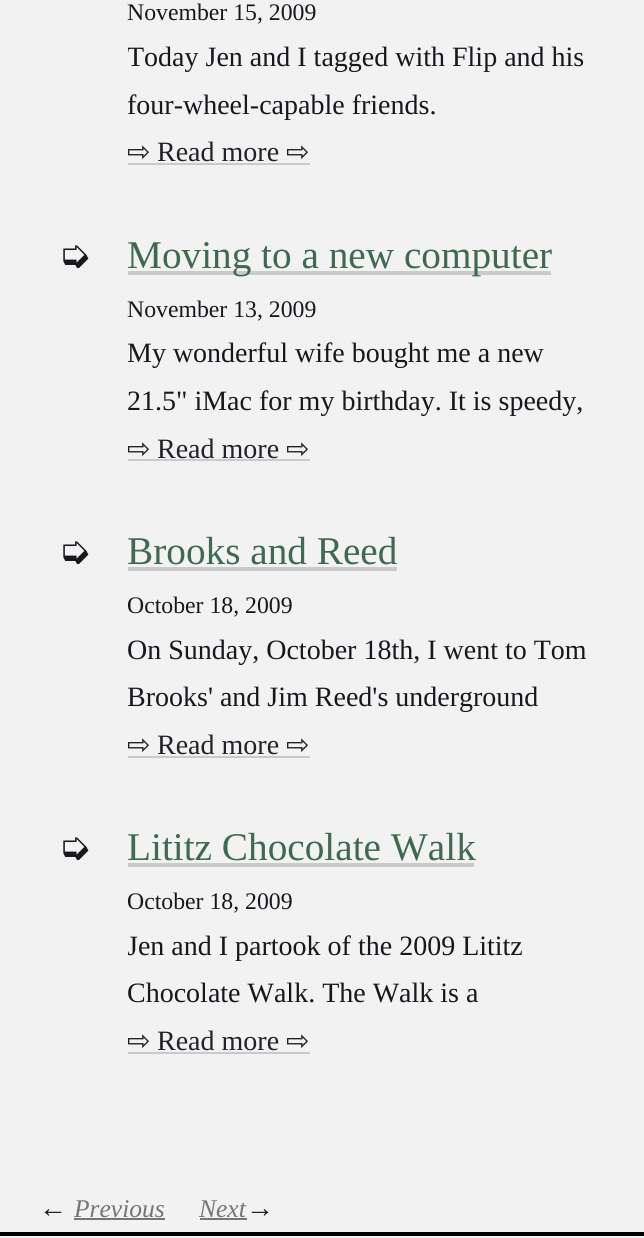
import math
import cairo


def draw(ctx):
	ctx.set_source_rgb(0.953, 0.949, 0.949)
	ctx.paint()
	ctx.select_font_face('Liberation Serif')
	ctx.set_font_size(23.75)
	ctx.set_source_rgb(0.09, 0.094, 0.118)
	ctx.move_to(127, 20)
	ctx.show_text('November 15, 2009')
	ctx.save()
	ctx.rectangle(128, 33, 478, 95)
	ctx.clip()
	ctx.set_font_size(28)
	ctx.move_to(127, 66)
	ctx.show_text('Today Jen and I tagged with Flip and his')
	ctx.restore()
	ctx.set_font_size(28)
	ctx.move_to(127, 114)
	ctx.show_text('four-wheel-capable friends.')
	ctx.select_font_face('DejaVu Sans')
	ctx.set_source_rgb(0.129, 0.133, 0.157)
	ctx.move_to(127, 161)
	ctx.show_text('⇨')
	ctx.set_source_rgb(0.788, 0.788, 0.808)
	ctx.rectangle(128, 163, 182, 2)
	ctx.fill()
	ctx.select_font_face('Liberation Serif')
	ctx.set_source_rgb(0.129, 0.133, 0.157)
	ctx.move_to(157, 161)
	ctx.show_text('Read more')
	ctx.select_font_face('DejaVu Sans')
	ctx.move_to(286, 161)
	ctx.show_text('⇨')
	ctx.set_font_size(39.25)
	ctx.set_source_rgb(0.09, 0.094, 0.118)
	ctx.move_to(58, 268)
	ctx.show_text('➭')
	ctx.set_source_rgb(0.788, 0.788, 0.808)
	ctx.rectangle(128, 271, 423, 4)
	ctx.fill()
	ctx.select_font_face('Liberation Serif')
	ctx.set_source_rgb(0.247, 0.412, 0.318)
	ctx.move_to(127, 268)
	ctx.show_text('Moving to a new computer')
	ctx.set_font_size(23.75)
	ctx.set_source_rgb(0.09, 0.094, 0.118)
	ctx.move_to(127, 317)
	ctx.show_text('November 13, 2009')
	ctx.save()
	ctx.rectangle(128, 329, 478, 95)
	ctx.clip()
	ctx.set_font_size(28)
	ctx.move_to(127, 362)
	ctx.show_text('My wonderful wife bought me a new')
	ctx.restore()
	ctx.set_font_size(28)
	ctx.move_to(127, 410)
	ctx.show_text('21.5" iMac for my birthday. It is speedy,')
	ctx.select_font_face('DejaVu Sans')
	ctx.set_source_rgb(0.129, 0.133, 0.157)
	ctx.move_to(127, 458)
	ctx.show_text('⇨')
	ctx.set_source_rgb(0.788, 0.788, 0.808)
	ctx.rectangle(128, 459, 182, 2)
	ctx.fill()
	ctx.select_font_face('Liberation Serif')
	ctx.set_source_rgb(0.129, 0.133, 0.157)
	ctx.move_to(157, 458)
	ctx.show_text('Read more')
	ctx.select_font_face('DejaVu Sans')
	ctx.move_to(286, 458)
	ctx.show_text('⇨')
	ctx.set_font_size(39.25)
	ctx.set_source_rgb(0.09, 0.094, 0.118)
	ctx.move_to(58, 564)
	ctx.show_text('➭')
	ctx.select_font_face('Liberation Serif')
	ctx.set_source_rgb(0.247, 0.412, 0.318)
	ctx.move_to(127, 564)
	ctx.show_text('Brooks and Reed')
	ctx.set_source_rgb(0.788, 0.788, 0.808)
	ctx.rectangle(128, 567, 269, 4)
	ctx.fill()
	ctx.set_font_size(23.75)
	ctx.set_source_rgb(0.09, 0.094, 0.118)
	ctx.move_to(127, 613)
	ctx.show_text('October 18, 2009')
	ctx.set_font_size(28)
	ctx.move_to(127, 659)
	ctx.show_text('On Sunday, October 18th, I went to Tom')
	ctx.save()
	ctx.rectangle(128, 625, 478, 96)
	ctx.clip()
	ctx.move_to(127, 706)
	ctx.show_text('Brooks\' and Jim Reed\'s underground')
	ctx.restore()
	ctx.select_font_face('DejaVu Sans')
	ctx.set_source_rgb(0.129, 0.133, 0.157)
	ctx.move_to(127, 754)
	ctx.show_text('⇨')
	ctx.set_source_rgb(0.788, 0.788, 0.808)
	ctx.rectangle(128, 756, 182, 2)
	ctx.fill()
	ctx.select_font_face('Liberation Serif')
	ctx.set_source_rgb(0.129, 0.133, 0.157)
	ctx.move_to(157, 754)
	ctx.show_text('Read more')
	ctx.select_font_face('DejaVu Sans')
	ctx.move_to(286, 754)
	ctx.show_text('⇨')
	ctx.set_font_size(39.25)
	ctx.set_source_rgb(0.09, 0.094, 0.118)
	ctx.move_to(58, 860)
	ctx.show_text('➭')
	ctx.select_font_face('Liberation Serif')
	ctx.set_source_rgb(0.247, 0.412, 0.318)
	ctx.move_to(127, 860)
	ctx.show_text('Lititz Chocolate Walk')
	ctx.set_source_rgb(0.788, 0.788, 0.808)
	ctx.rectangle(128, 863, 346, 4)
	ctx.fill()
	ctx.set_font_size(23.75)
	ctx.set_source_rgb(0.09, 0.094, 0.118)
	ctx.move_to(127, 909)
	ctx.show_text('October 18, 2009')
	ctx.save()
	ctx.rectangle(128, 922, 478, 95)
	ctx.clip()
	ctx.set_font_size(28)
	ctx.move_to(127, 955)
	ctx.show_text('Jen and I partook of the 2009 Lititz')
	ctx.restore()
	ctx.set_font_size(28)
	ctx.move_to(127, 1002)
	ctx.show_text('Chocolate Walk. The Walk is a')
	ctx.select_font_face('DejaVu Sans')
	ctx.set_source_rgb(0.129, 0.133, 0.157)
	ctx.move_to(127, 1050)
	ctx.show_text('⇨')
	ctx.set_source_rgb(0.788, 0.788, 0.808)
	ctx.rectangle(128, 1052, 182, 2)
	ctx.fill()
	ctx.select_font_face('Liberation Serif')
	ctx.set_source_rgb(0.129, 0.133, 0.157)
	ctx.move_to(157, 1050)
	ctx.show_text('Read more')
	ctx.select_font_face('DejaVu Sans')
	ctx.move_to(286, 1050)
	ctx.show_text('⇨')
	ctx.select_font_face('Liberation Serif')
	ctx.set_source_rgb(0.09, 0.094, 0.118)
	ctx.move_to(39, 1217)
	ctx.show_text('←')
	ctx.select_font_face('Liberation Serif', cairo.FONT_SLANT_ITALIC)
	ctx.set_font_size(25.5)
	ctx.set_source_rgb(0.455, 0.459, 0.467)
	ctx.move_to(74, 1217)
	ctx.show_text('Previous')
	ctx.rectangle(74, 1218, 91, 2)
	ctx.fill()
	ctx.move_to(199, 1217)
	ctx.show_text('Next')
	ctx.rectangle(200, 1218, 47, 2)
	ctx.fill()
	ctx.select_font_face('Liberation Serif')
	ctx.set_font_size(28)
	ctx.set_source_rgb(0.09, 0.094, 0.118)
	ctx.move_to(246, 1217)
	ctx.show_text('→')
	ctx.set_source_rgb(0, 0, 0)
	ctx.rectangle(0, 1232, 644, 4)
	ctx.fill()


surface = cairo.ImageSurface(cairo.FORMAT_RGB24, 644, 1238)
ctx = cairo.Context(surface)
options = cairo.FontOptions()
options.set_hint_metrics(cairo.HINT_METRICS_OFF)
options.set_hint_style(cairo.HINT_STYLE_NONE)
ctx.set_font_options(options)
ctx.set_miter_limit(4)
draw(ctx)
surface.write_to_png('image.png')
